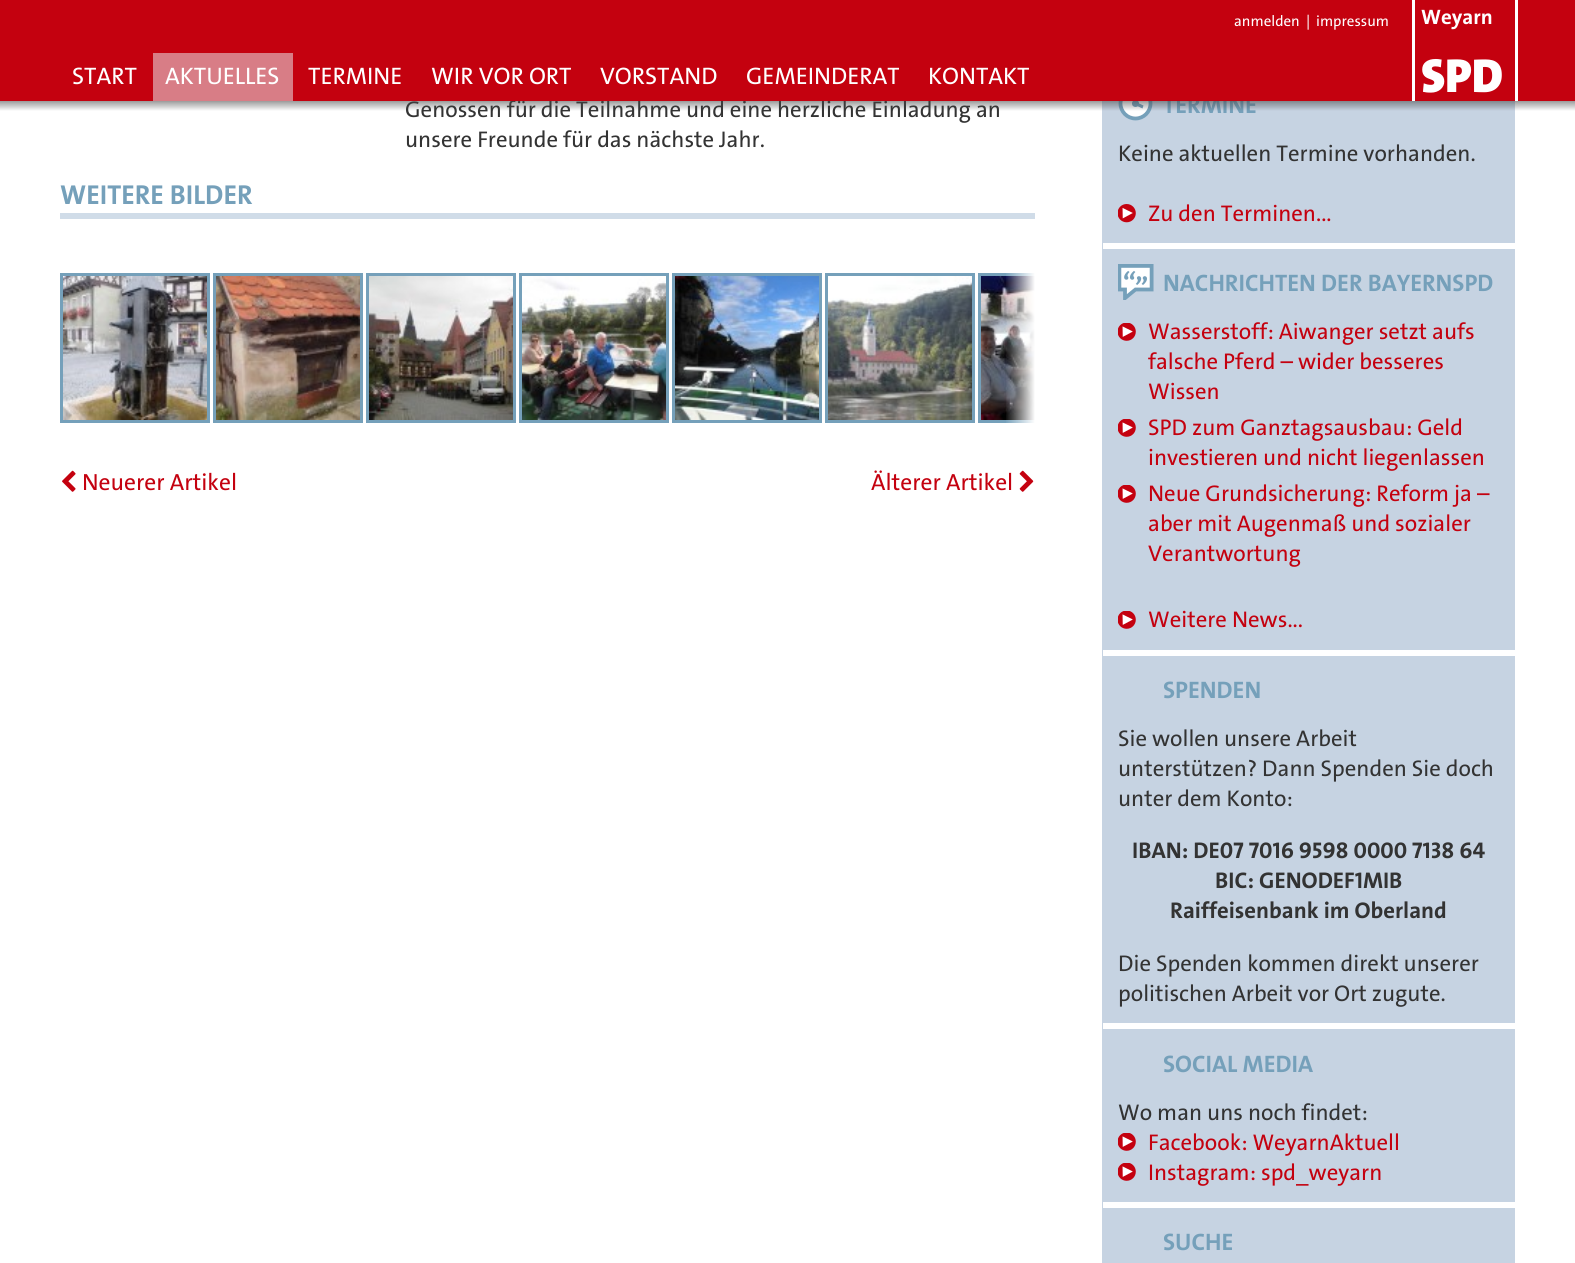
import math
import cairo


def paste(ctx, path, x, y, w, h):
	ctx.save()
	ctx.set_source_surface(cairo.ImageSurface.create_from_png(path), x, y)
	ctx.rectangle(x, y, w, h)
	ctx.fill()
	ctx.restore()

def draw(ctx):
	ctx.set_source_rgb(1, 1, 1)
	ctx.paint()
	ctx.select_font_face('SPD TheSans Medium')
	ctx.set_font_size(22.8)
	ctx.set_source_rgb(0.2, 0.2, 0.2)
	ctx.move_to(405, 117)
	ctx.show_text('Genossen für die Teilnahme und eine herzliche Einladung an')
	ctx.set_source_rgb(0.776, 0.827, 0.886)
	ctx.rectangle(1102, 101, 413, 1162)
	ctx.fill()
	ctx.set_source_rgb(1, 1, 1)
	ctx.arc(1135.5, 103.5, 15, 0, 2 * math.pi)
	ctx.fill_preserve()
	ctx.set_source_rgb(0.459, 0.627, 0.729)
	ctx.set_line_width(3.8)
	ctx.stroke()
	ctx.arc(1135.5, 103.5, 3.5, 0, 2 * math.pi)
	ctx.fill()
	ctx.select_font_face('SPD TheSans', cairo.FONT_SLANT_NORMAL, cairo.FONT_WEIGHT_BOLD)
	ctx.set_font_size(24)
	ctx.move_to(1163, 113)
	ctx.show_text('TERMINE')
	ctx.set_source_rgb(0.769, 0.004, 0.059)
	ctx.rectangle(0, 0, 1575, 101)
	ctx.fill()
	ctx.set_source_rgb(1, 1, 1)
	ctx.rectangle(1412, 0, 106, 101)
	ctx.fill()
	ctx.select_font_face('SPD TheSans Medium')
	ctx.set_font_size(15)
	for x, y, s in [
		(1234, 26, 'anmelden'),
		(1306, 26, '|'),
		(1316, 26, 'impressum'),
	]:
		ctx.move_to(x, y)
		ctx.show_text(s)
	ctx.set_source_rgb(0.769, 0.004, 0.059)
	ctx.rectangle(1415, 0, 100, 101)
	ctx.fill()
	ctx.select_font_face('SPD TheSans', cairo.FONT_SLANT_NORMAL, cairo.FONT_WEIGHT_BOLD)
	ctx.set_font_size(21)
	ctx.set_source_rgb(1, 1, 1)
	ctx.move_to(1421, 24)
	ctx.show_text('Weyarn')
	ctx.select_font_face('SPD TheSans Black')
	ctx.set_font_size(48)
	ctx.move_to(1421, 92)
	ctx.show_text('SPD')
	ctx.select_font_face('SPD TheSans Medium')
	ctx.set_font_size(24)
	ctx.move_to(72, 84)
	ctx.show_text('START')
	ctx.set_source_rgb(0.847, 0.49, 0.525)
	ctx.rectangle(153, 53, 140, 48)
	ctx.fill()
	ctx.set_source_rgb(1, 1, 1)
	for x, y, s in [
		(165, 84, 'AKTUELLES'),
		(308, 84, 'TERMINE'),
		(431, 84, 'WIR VOR ORT'),
		(600, 84, 'VORSTAND'),
		(746, 84, 'GEMEINDERAT'),
		(928, 84, 'KONTAKT'),
	]:
		ctx.move_to(x, y)
		ctx.show_text(s)
	ctx.set_source_rgb(0.459, 0.627, 0.729)
	ctx.new_path()
	ctx.move_to(1136, 102)
	ctx.line_to(1143.5, 105.5)
	ctx.line_to(1142.5, 108.5)
	ctx.line_to(1135, 105)
	ctx.close_path()
	ctx.fill()
	gradient = cairo.LinearGradient(788, 100, 788, 111)
	gradient.add_color_stop_rgba(0, 0.275, 0.275, 0.275, 0.6)
	gradient.add_color_stop_rgba(1, 0.275, 0.275, 0.275, 0)
	ctx.set_source(gradient)
	ctx.rectangle(0, 101, 1575, 10)
	ctx.fill()
	ctx.set_font_size(22.8)
	ctx.set_source_rgb(0.2, 0.2, 0.2)
	ctx.move_to(405, 147)
	ctx.show_text('unsere Freunde für das nächste Jahr.')
	ctx.set_source_rgb(0.816, 0.863, 0.91)
	ctx.rectangle(60, 213, 975, 6)
	ctx.fill()
	ctx.select_font_face('SPD TheSans', cairo.FONT_SLANT_NORMAL, cairo.FONT_WEIGHT_BOLD)
	ctx.set_font_size(27.5)
	ctx.set_source_rgb(0.459, 0.627, 0.729)
	ctx.move_to(60, 204)
	ctx.show_text('WEITERE BILDER')
	ctx.rectangle(61.5, 274.5, 147, 147)
	ctx.set_line_width(3)
	ctx.stroke()
	paste(ctx, 'media/1.png', 63, 276, 144, 144)
	ctx.rectangle(214.5, 274.5, 147, 147)
	ctx.stroke()
	paste(ctx, 'media/2.png', 216, 276, 144, 144)
	ctx.rectangle(367.5, 274.5, 147, 147)
	ctx.stroke()
	paste(ctx, 'media/3.png', 369, 276, 144, 144)
	ctx.rectangle(520.5, 274.5, 147, 147)
	ctx.stroke()
	paste(ctx, 'media/4.png', 522, 276, 144, 144)
	ctx.rectangle(673.5, 274.5, 147, 147)
	ctx.stroke()
	paste(ctx, 'media/5.png', 675, 276, 144, 144)
	ctx.rectangle(826.5, 274.5, 147, 147)
	ctx.stroke()
	paste(ctx, 'media/6.png', 828, 276, 144, 144)
	paste(ctx, 'media/11.png', 1118, 264, 36, 36)
	paste(ctx, 'media/12.png', 1118, 323, 18, 18)
	paste(ctx, 'media/12.png', 1118, 419, 18, 18)
	ctx.save()
	ctx.rectangle(60, 273, 975, 150)
	ctx.clip()
	ctx.rectangle(979.5, 274.5, 147, 147)
	ctx.stroke()
	ctx.restore()
	paste(ctx, 'media/7.png', 981, 276, 54, 144)
	gradient = cairo.LinearGradient(1035, 345, 1005, 345)
	gradient.add_color_stop_rgba(0, 1, 1, 1, 1)
	gradient.add_color_stop_rgba(1, 1, 1, 1, 0)
	ctx.set_source(gradient)
	ctx.rectangle(1006, 273, 29, 150)
	ctx.fill()
	paste(ctx, 'media/8.png', 62, 470, 14, 22)
	ctx.select_font_face('SPD TheSans Medium')
	ctx.set_font_size(23.5)
	ctx.set_source_rgb(0.769, 0.004, 0.059)
	ctx.move_to(82, 490)
	ctx.show_text('Neuerer Artikel')
	ctx.move_to(871, 490)
	ctx.show_text('Älterer Artikel')
	paste(ctx, 'media/9.png', 1019, 470, 15, 22)
	ctx.set_source_rgb(1, 1, 1)
	ctx.rectangle(1103, 243, 412, 6)
	ctx.fill()
	ctx.set_font_size(22.8)
	ctx.set_source_rgb(0.2, 0.2, 0.2)
	ctx.move_to(1118, 161)
	ctx.show_text('Keine aktuellen Termine vorhanden.')
	paste(ctx, 'media/10.png', 1118, 204, 18, 19)
	ctx.set_source_rgb(0.769, 0.004, 0.059)
	ctx.move_to(1148, 221)
	ctx.show_text('Zu den Terminen...')
	ctx.set_source_rgb(1, 1, 1)
	ctx.rectangle(1103, 650, 412, 6)
	ctx.fill()
	ctx.select_font_face('SPD TheSans', cairo.FONT_SLANT_NORMAL, cairo.FONT_WEIGHT_BOLD)
	ctx.set_font_size(24)
	ctx.set_source_rgb(0.459, 0.627, 0.729)
	ctx.move_to(1163, 291)
	ctx.show_text('NACHRICHTEN DER BAYERNSPD')
	ctx.select_font_face('SPD TheSans Medium')
	ctx.set_font_size(22.8)
	ctx.set_source_rgb(0.769, 0.004, 0.059)
	for x, y, s in [
		(1148, 339, 'Wasserstoff: Aiwanger setzt aufs'),
		(1148, 369, 'falsche Pferd – wider besseres'),
		(1148, 399, 'Wissen'),
		(1148, 435, 'SPD zum Ganztagsausbau: Geld'),
		(1148, 465, 'investieren und nicht liegenlassen'),
	]:
		ctx.move_to(x, y)
		ctx.show_text(s)
	paste(ctx, 'media/12.png', 1118, 485, 18, 18)
	for x, y, s in [
		(1148, 501, 'Neue Grundsicherung: Reform ja –'),
		(1148, 531, 'aber mit Augenmaß und sozialer'),
		(1148, 561, 'Verantwortung'),
	]:
		ctx.move_to(x, y)
		ctx.show_text(s)
	paste(ctx, 'media/12.png', 1118, 611, 18, 18)
	ctx.move_to(1148, 627)
	ctx.show_text('Weitere News...')
	ctx.set_source_rgb(1, 1, 1)
	ctx.rectangle(1103, 1023, 412, 6)
	ctx.fill()
	ctx.select_font_face('SPD TheSans', cairo.FONT_SLANT_NORMAL, cairo.FONT_WEIGHT_BOLD)
	ctx.set_font_size(24)
	ctx.set_source_rgb(0.459, 0.627, 0.729)
	ctx.move_to(1163, 698)
	ctx.show_text('SPENDEN')
	ctx.select_font_face('SPD TheSans Medium')
	ctx.set_font_size(22.8)
	ctx.set_source_rgb(0.2, 0.2, 0.2)
	for x, y, s in [
		(1118, 746, 'Sie wollen unsere Arbeit'),
		(1118, 776, 'unterstützen? Dann Spenden Sie doch'),
		(1118, 806, 'unter dem Konto:'),
	]:
		ctx.move_to(x, y)
		ctx.show_text(s)
	ctx.select_font_face('SPD TheSans', cairo.FONT_SLANT_NORMAL, cairo.FONT_WEIGHT_BOLD)
	for x, y, s in [
		(1132, 858, 'IBAN: DE07 7016 9598 0000 7138 64'),
		(1215, 888, 'BIC: GENODEF1MIB'),
		(1170, 918, 'Raiffeisenbank im Oberland'),
	]:
		ctx.move_to(x, y)
		ctx.show_text(s)
	ctx.select_font_face('SPD TheSans Medium')
	ctx.move_to(1118, 971)
	ctx.show_text('Die Spenden kommen direkt unserer')
	ctx.move_to(1118, 1001)
	ctx.show_text('politischen Arbeit vor Ort zugute.')
	ctx.set_source_rgb(1, 1, 1)
	ctx.rectangle(1103, 1202, 412, 6)
	ctx.fill()
	ctx.select_font_face('SPD TheSans', cairo.FONT_SLANT_NORMAL, cairo.FONT_WEIGHT_BOLD)
	ctx.set_font_size(24)
	ctx.set_source_rgb(0.459, 0.627, 0.729)
	ctx.move_to(1163, 1072)
	ctx.show_text('SOCIAL MEDIA')
	ctx.select_font_face('SPD TheSans Medium')
	ctx.set_font_size(22.8)
	ctx.set_source_rgb(0.2, 0.2, 0.2)
	ctx.move_to(1118, 1120)
	ctx.show_text('Wo man uns noch findet:')
	paste(ctx, 'media/12.png', 1118, 1133, 18, 18)
	ctx.set_source_rgb(0.769, 0.004, 0.059)
	ctx.move_to(1148, 1150)
	ctx.show_text('Facebook: WeyarnAktuell')
	paste(ctx, 'media/12.png', 1118, 1163, 18, 18)
	ctx.move_to(1148, 1180)
	ctx.show_text('Instagram: spd_weyarn')
	ctx.select_font_face('SPD TheSans', cairo.FONT_SLANT_NORMAL, cairo.FONT_WEIGHT_BOLD)
	ctx.set_font_size(24)
	ctx.set_source_rgb(0.459, 0.627, 0.729)
	ctx.move_to(1163, 1250)
	ctx.show_text('SUCHE')


surface = cairo.ImageSurface(cairo.FORMAT_RGB24, 1575, 1263)
ctx = cairo.Context(surface)
options = cairo.FontOptions()
options.set_hint_metrics(cairo.HINT_METRICS_OFF)
options.set_hint_style(cairo.HINT_STYLE_NONE)
ctx.set_font_options(options)
ctx.set_miter_limit(4)
draw(ctx)
surface.write_to_png('image.png')
